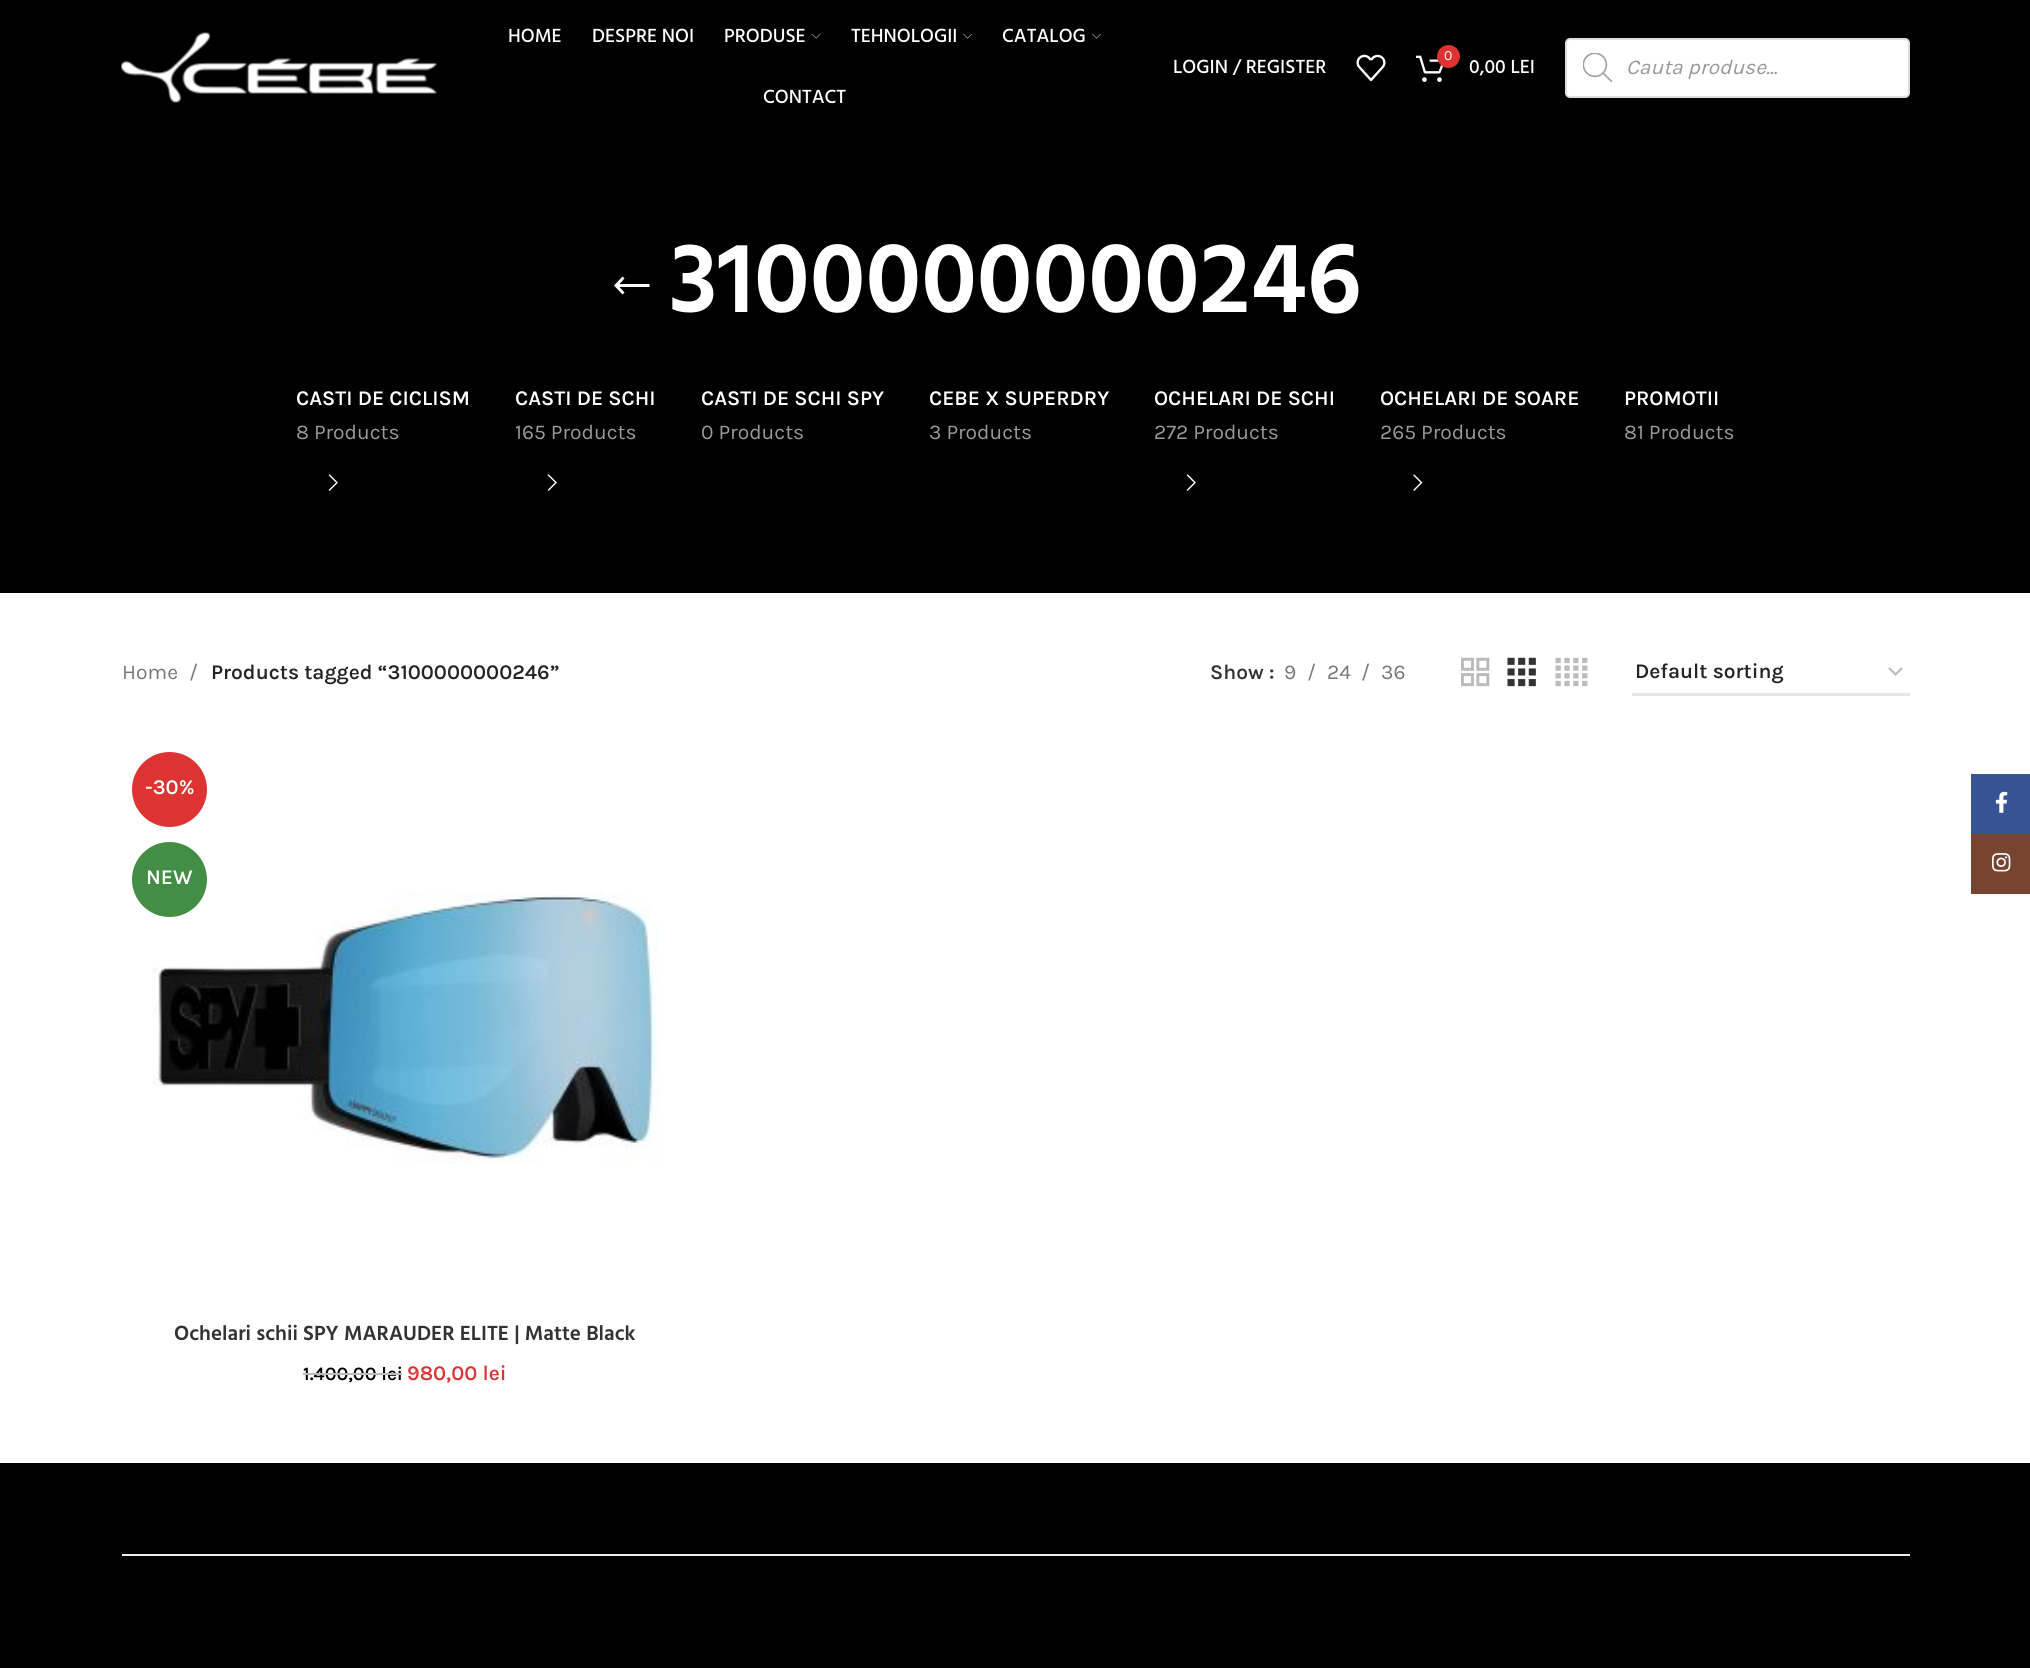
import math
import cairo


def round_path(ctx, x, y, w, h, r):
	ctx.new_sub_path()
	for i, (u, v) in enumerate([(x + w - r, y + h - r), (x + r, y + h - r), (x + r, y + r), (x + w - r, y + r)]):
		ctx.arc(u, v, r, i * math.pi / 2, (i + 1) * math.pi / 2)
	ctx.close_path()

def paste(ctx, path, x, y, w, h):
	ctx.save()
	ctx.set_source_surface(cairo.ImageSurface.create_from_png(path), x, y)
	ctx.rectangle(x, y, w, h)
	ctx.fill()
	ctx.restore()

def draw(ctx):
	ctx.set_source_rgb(1, 1, 1)
	ctx.paint()
	ctx.set_source_rgb(0, 0, 0)
	ctx.rectangle(0, 0, 2030, 593)
	ctx.fill()
	paste(ctx, 'media/1.png', 121, 32, 316, 71)
	ctx.select_font_face('Hind Medium')
	ctx.set_font_size(19.5)
	ctx.set_source_rgb(1, 1, 1)
	for x, y, s in [
		(508, 42, 'HOME'),
		(592, 42, 'DESPRE NOI'),
		(724, 42, 'PRODUSE'),
	]:
		ctx.move_to(x, y)
		ctx.show_text(s)
	paste(ctx, 'media/2.png', 811, 33, 10, 6)
	ctx.move_to(851, 42)
	ctx.show_text('TEHNOLOGII')
	paste(ctx, 'media/3.png', 963, 33, 9, 6)
	ctx.move_to(1002, 42)
	ctx.show_text('CATALOG')
	paste(ctx, 'media/3.png', 1092, 33, 9, 6)
	ctx.move_to(763, 103)
	ctx.show_text('CONTACT')
	ctx.move_to(1173, 73)
	ctx.show_text('LOGIN / REGISTER')
	paste(ctx, 'media/4.png', 1356, 54, 30, 27)
	paste(ctx, 'media/5.png', 1416, 55, 28, 27)
	ctx.set_source_rgb(0.867, 0.2, 0.2)
	ctx.arc(1448.5, 56.5, 11.5, 0, 2 * math.pi)
	ctx.fill()
	ctx.select_font_face('Karla')
	ctx.set_font_size(14)
	ctx.set_source_rgb(1, 1, 1)
	ctx.move_to(1444, 60)
	ctx.show_text('0')
	ctx.select_font_face('Hind Medium')
	ctx.set_font_size(19.5)
	ctx.move_to(1469, 73)
	ctx.show_text('0,00 LEI')
	round_path(ctx, 1566, 39, 343, 58, 4)
	ctx.fill_preserve()
	ctx.set_source_rgb(0.867, 0.867, 0.867)
	ctx.stroke()
	paste(ctx, 'media/6.png', 1583, 53, 30, 30)
	ctx.select_font_face('Karla', cairo.FONT_SLANT_ITALIC)
	ctx.set_font_size(21)
	ctx.set_source_rgb(0.6, 0.6, 0.6)
	ctx.move_to(1626, 74)
	ctx.show_text('Cauta produse...')
	ctx.set_source_rgb(1, 1, 1)
	ctx.new_path()
	ctx.move_to(624.5, 292.5)
	ctx.line_to(619.5, 287)
	ctx.line_to(649.5, 287)
	ctx.line_to(649.5, 284)
	ctx.line_to(619.5, 284)
	ctx.line_to(624.5, 278.5)
	ctx.line_to(622.5, 276.5)
	ctx.line_to(614, 285.5)
	ctx.line_to(622.5, 294.5)
	ctx.close_path()
	ctx.fill()
	ctx.select_font_face('Hind SemiBold')
	ctx.set_font_size(102)
	ctx.move_to(669, 312)
	ctx.show_text('3100000000246')
	ctx.select_font_face('Karla SemiBold')
	ctx.set_font_size(21)
	ctx.move_to(296, 405)
	ctx.show_text('CASTI DE CICLISM')
	ctx.select_font_face('Karla')
	ctx.set_source_rgb(0.6, 0.6, 0.6)
	ctx.move_to(296, 439)
	ctx.show_text('8 Products')
	paste(ctx, 'media/7.png', 328, 474, 10, 17)
	ctx.select_font_face('Karla SemiBold')
	ctx.set_source_rgb(1, 1, 1)
	ctx.move_to(515, 405)
	ctx.show_text('CASTI DE SCHI')
	ctx.select_font_face('Karla')
	ctx.set_source_rgb(0.6, 0.6, 0.6)
	ctx.move_to(515, 439)
	ctx.show_text('165 Products')
	paste(ctx, 'media/7.png', 547, 474, 10, 17)
	ctx.select_font_face('Karla SemiBold')
	ctx.set_source_rgb(1, 1, 1)
	ctx.move_to(701, 405)
	ctx.show_text('CASTI DE SCHI SPY')
	ctx.select_font_face('Karla')
	ctx.set_source_rgb(0.6, 0.6, 0.6)
	ctx.move_to(701, 439)
	ctx.show_text('0 Products')
	ctx.select_font_face('Karla SemiBold')
	ctx.set_source_rgb(1, 1, 1)
	ctx.move_to(929, 405)
	ctx.show_text('CEBE X SUPERDRY')
	ctx.select_font_face('Karla')
	ctx.set_source_rgb(0.6, 0.6, 0.6)
	ctx.move_to(929, 439)
	ctx.show_text('3 Products')
	ctx.select_font_face('Karla SemiBold')
	ctx.set_source_rgb(1, 1, 1)
	ctx.move_to(1154, 405)
	ctx.show_text('OCHELARI DE SCHI')
	ctx.select_font_face('Karla')
	ctx.set_source_rgb(0.6, 0.6, 0.6)
	ctx.move_to(1154, 439)
	ctx.show_text('272 Products')
	paste(ctx, 'media/7.png', 1186, 474, 10, 17)
	ctx.select_font_face('Karla SemiBold')
	ctx.set_source_rgb(1, 1, 1)
	ctx.move_to(1380, 405)
	ctx.show_text('OCHELARI DE SOARE')
	ctx.select_font_face('Karla')
	ctx.set_source_rgb(0.6, 0.6, 0.6)
	ctx.move_to(1380, 439)
	ctx.show_text('265 Products')
	paste(ctx, 'media/8.png', 1413, 474, 10, 17)
	ctx.select_font_face('Karla SemiBold')
	ctx.set_source_rgb(1, 1, 1)
	ctx.move_to(1624, 405)
	ctx.show_text('PROMOTII')
	ctx.select_font_face('Karla')
	ctx.set_source_rgb(0.6, 0.6, 0.6)
	ctx.move_to(1624, 439)
	ctx.show_text('81 Products')
	ctx.set_source_rgb(0.463, 0.463, 0.463)
	ctx.move_to(122, 679)
	ctx.show_text('Home')
	ctx.move_to(189, 679)
	ctx.show_text('/')
	ctx.select_font_face('Karla SemiBold')
	ctx.set_source_rgb(0.141, 0.141, 0.141)
	ctx.move_to(211, 679)
	ctx.show_text('Products tagged “3100000000246”')
	ctx.set_source_rgb(0.2, 0.2, 0.2)
	ctx.move_to(1210, 679)
	ctx.show_text('Show :')
	ctx.select_font_face('Karla')
	ctx.set_source_rgb(0.463, 0.463, 0.463)
	for x, y, s in [
		(1284, 679, '9'),
		(1307, 679, '/'),
		(1327, 679, '24'),
		(1361, 679, '/'),
		(1381, 679, '36'),
	]:
		ctx.move_to(x, y)
		ctx.show_text(s)
	paste(ctx, 'media/9.png', 1461, 657, 29, 30)
	paste(ctx, 'media/10.png', 1507, 657, 29, 30)
	paste(ctx, 'media/11.png', 1555, 657, 33, 30)
	ctx.new_path()
	ctx.move_to(1889, 668)
	ctx.line_to(1895.5, 674.5)
	ctx.line_to(1902, 668)
	ctx.set_source_rgb(0.733, 0.733, 0.733)
	ctx.set_line_width(2.2)
	ctx.stroke()
	ctx.set_source_rgb(0.902, 0.902, 0.902)
	ctx.rectangle(1632, 693, 278, 3)
	ctx.fill()
	ctx.select_font_face('Karla SemiBold')
	ctx.set_source_rgb(0.141, 0.141, 0.141)
	ctx.move_to(1635, 678)
	ctx.show_text('Default sorting')
	ctx.set_source_rgb(0.867, 0.2, 0.2)
	ctx.new_path()
	ctx.arc(169.5, 789.5, 37.5, 0, 2 * math.pi)
	ctx.fill()
	ctx.set_source_rgb(1, 1, 1)
	ctx.move_to(145, 794)
	ctx.show_text('-30%')
	paste(ctx, 'media/12.png', 152, 891, 511, 273)
	ctx.set_source_rgb(0.263, 0.557, 0.267)
	ctx.arc(169.5, 879.5, 37.5, 0, 2 * math.pi)
	ctx.fill()
	ctx.set_source_rgb(1, 1, 1)
	ctx.move_to(146, 884)
	ctx.show_text('NEW')
	ctx.select_font_face('Hind SemiBold')
	ctx.set_source_rgb(0.2, 0.2, 0.2)
	ctx.move_to(174, 1340)
	ctx.show_text('Ochelari schii SPY MARAUDER ELITE | Matte Black')
	ctx.select_font_face('Karla SemiBold')
	ctx.set_font_size(19)
	ctx.set_source_rgb(0, 0, 0)
	ctx.move_to(303, 1380)
	ctx.show_text('1.400,00 lei')
	ctx.set_source_rgb(0.733, 0.733, 0.733)
	ctx.rectangle(303, 1373, 99, 2)
	ctx.fill()
	ctx.set_font_size(21)
	ctx.set_source_rgb(0.867, 0.2, 0.2)
	ctx.move_to(407, 1380)
	ctx.show_text('980,00 lei')
	ctx.set_source_rgb(0, 0, 0)
	ctx.rectangle(0, 1463, 2030, 205)
	ctx.fill()
	ctx.set_source_rgb(0.922, 0.922, 0.922)
	ctx.rectangle(122, 1554, 1788, 2)
	ctx.fill()
	ctx.set_source_rgb(0.212, 0.329, 0.576)
	ctx.rectangle(1971, 774, 59, 60)
	ctx.fill()
	paste(ctx, 'media/13.png', 1995, 791, 13, 22)
	ctx.set_source_rgb(0.467, 0.267, 0.188)
	ctx.rectangle(1971, 834, 59, 60)
	ctx.fill()
	paste(ctx, 'media/14.png', 1992, 853, 19, 19)


surface = cairo.ImageSurface(cairo.FORMAT_RGB24, 2030, 1668)
ctx = cairo.Context(surface)
options = cairo.FontOptions()
options.set_hint_metrics(cairo.HINT_METRICS_OFF)
options.set_hint_style(cairo.HINT_STYLE_NONE)
ctx.set_font_options(options)
ctx.set_miter_limit(4)
draw(ctx)
surface.write_to_png('image.png')
